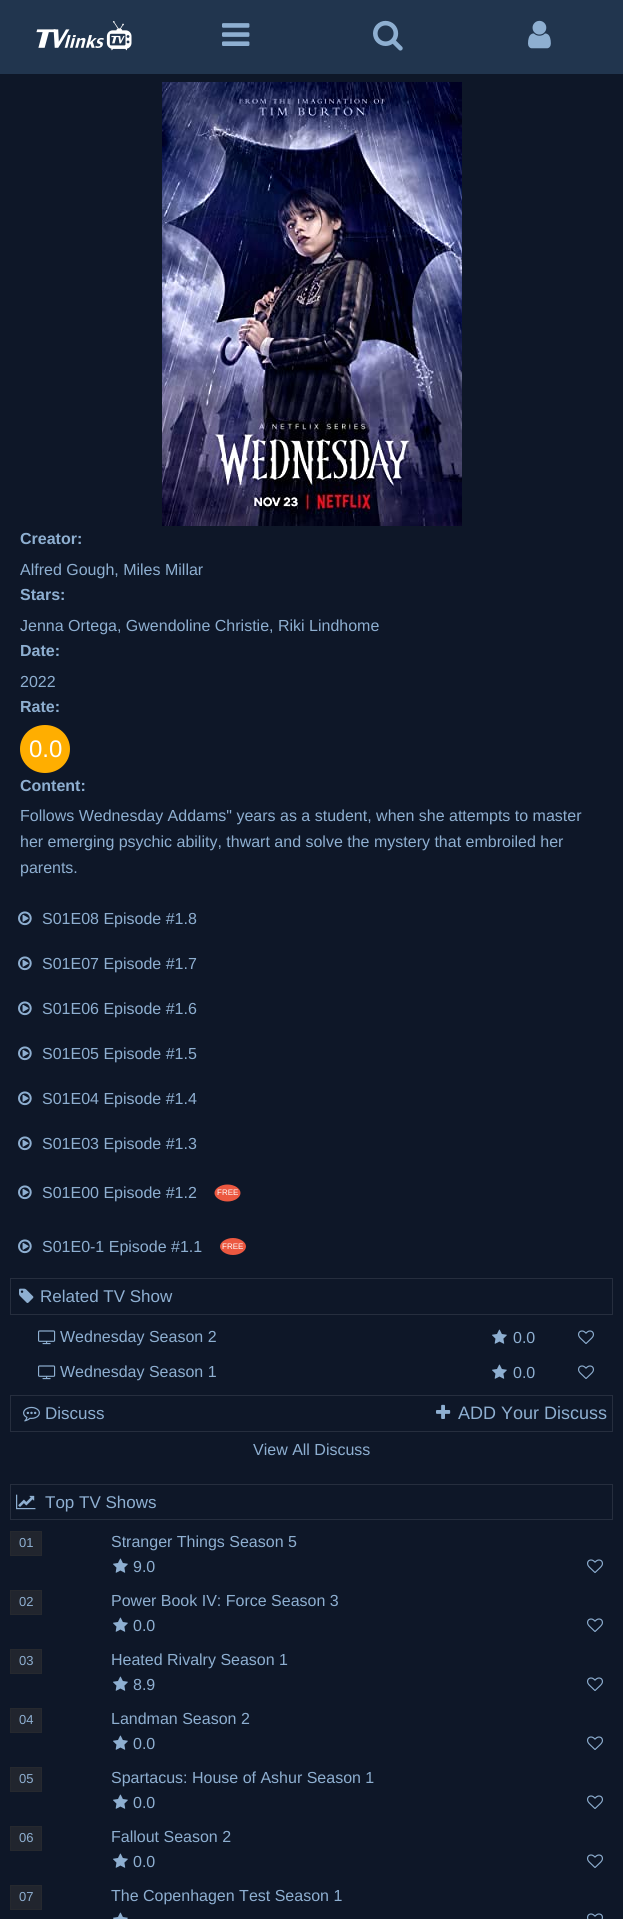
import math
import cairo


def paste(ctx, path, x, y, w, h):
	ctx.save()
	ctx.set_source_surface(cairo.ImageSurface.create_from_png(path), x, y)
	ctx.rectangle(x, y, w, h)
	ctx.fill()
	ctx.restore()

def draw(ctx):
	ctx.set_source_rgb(0.055, 0.09, 0.157)
	ctx.paint()
	ctx.set_source_rgb(0.129, 0.208, 0.306)
	ctx.rectangle(0, 0, 623, 74)
	ctx.fill()
	paste(ctx, 'media/1.png', 36, 21, 96, 30)
	paste(ctx, 'media/2.png', 222, 23, 28, 23)
	paste(ctx, 'media/3.png', 373, 20, 30, 31)
	paste(ctx, 'media/4.png', 528, 20, 23, 29)
	paste(ctx, 'media/5.png', 162, 82, 300, 444)
	ctx.select_font_face('Liberation Sans', cairo.FONT_SLANT_NORMAL, cairo.FONT_WEIGHT_BOLD)
	ctx.set_font_size(16)
	ctx.set_source_rgb(0.557, 0.686, 0.82)
	ctx.move_to(20, 544)
	ctx.show_text('Creator:')
	ctx.select_font_face('Liberation Sans')
	ctx.move_to(20, 575)
	ctx.show_text('Alfred Gough, Miles Millar')
	ctx.select_font_face('Liberation Sans', cairo.FONT_SLANT_NORMAL, cairo.FONT_WEIGHT_BOLD)
	ctx.move_to(20, 600)
	ctx.show_text('Stars:')
	ctx.select_font_face('Liberation Sans')
	ctx.move_to(20, 631)
	ctx.show_text('Jenna Ortega, Gwendoline Christie, Riki Lindhome')
	ctx.select_font_face('Liberation Sans', cairo.FONT_SLANT_NORMAL, cairo.FONT_WEIGHT_BOLD)
	ctx.move_to(20, 656)
	ctx.show_text('Date:')
	ctx.select_font_face('Liberation Sans')
	ctx.move_to(20, 687)
	ctx.show_text('2022')
	ctx.select_font_face('Liberation Sans', cairo.FONT_SLANT_NORMAL, cairo.FONT_WEIGHT_BOLD)
	ctx.move_to(20, 712)
	ctx.show_text('Rate:')
	ctx.set_source_rgb(1, 0.682, 0)
	ctx.new_path()
	ctx.move_to(45, 725)
	ctx.curve_to(59, 725, 70, 735.5, 70, 749)
	ctx.curve_to(70, 762.5, 59, 773, 45, 773)
	ctx.curve_to(31, 773, 20, 762.5, 20, 749)
	ctx.curve_to(20, 735.5, 31, 725, 45, 725)
	ctx.close_path()
	ctx.fill()
	ctx.select_font_face('Liberation Sans')
	ctx.set_font_size(24)
	ctx.set_source_rgb(0.996, 0.996, 0.996)
	ctx.move_to(29, 757)
	ctx.show_text('0.0')
	ctx.select_font_face('Liberation Sans', cairo.FONT_SLANT_NORMAL, cairo.FONT_WEIGHT_BOLD)
	ctx.set_font_size(16)
	ctx.set_source_rgb(0.557, 0.686, 0.82)
	ctx.move_to(20, 791)
	ctx.show_text('Content:')
	ctx.select_font_face('Liberation Sans')
	for x, y, s in [
		(20, 821, 'Follows Wednesday Addams" years as a student, when she attempts to master'),
		(20, 847, 'her emerging psychic ability, thwart and solve the mystery that embroiled her'),
		(20, 873, 'parents.'),
	]:
		ctx.move_to(x, y)
		ctx.show_text(s)
	paste(ctx, 'media/6.png', 18, 911, 14, 15)
	ctx.move_to(42, 924)
	ctx.show_text('S01E08 Episode #1.8')
	paste(ctx, 'media/6.png', 18, 956, 14, 15)
	ctx.move_to(42, 969)
	ctx.show_text('S01E07 Episode #1.7')
	paste(ctx, 'media/6.png', 18, 1001, 14, 15)
	ctx.move_to(42, 1014)
	ctx.show_text('S01E06 Episode #1.6')
	paste(ctx, 'media/6.png', 18, 1046, 14, 15)
	ctx.move_to(42, 1059)
	ctx.show_text('S01E05 Episode #1.5')
	paste(ctx, 'media/6.png', 18, 1091, 14, 15)
	ctx.move_to(42, 1104)
	ctx.show_text('S01E04 Episode #1.4')
	paste(ctx, 'media/6.png', 18, 1136, 14, 15)
	ctx.move_to(42, 1149)
	ctx.show_text('S01E03 Episode #1.3')
	paste(ctx, 'media/6.png', 18, 1185, 14, 15)
	ctx.move_to(42, 1198)
	ctx.show_text('S01E00 Episode #1.2')
	ctx.set_source_rgb(0.925, 0.345, 0.251)
	ctx.new_path()
	ctx.move_to(227.5, 1184.5)
	ctx.curve_to(234.5, 1184.5, 240.5, 1188.5, 240.5, 1193)
	ctx.curve_to(240.5, 1197.5, 234.5, 1201.5, 227.5, 1201.5)
	ctx.curve_to(220.5, 1201.5, 214.5, 1197.5, 214.5, 1193)
	ctx.curve_to(214.5, 1188.5, 220.5, 1184.5, 227.5, 1184.5)
	ctx.close_path()
	ctx.fill()
	ctx.set_font_size(8)
	ctx.set_source_rgb(0.996, 0.996, 0.996)
	ctx.move_to(217, 1195)
	ctx.show_text('FREE')
	paste(ctx, 'media/6.png', 18, 1239, 14, 15)
	ctx.set_font_size(16)
	ctx.set_source_rgb(0.557, 0.686, 0.82)
	ctx.move_to(42, 1252)
	ctx.show_text('S01E0-1 Episode #1.1')
	ctx.set_source_rgb(0.925, 0.345, 0.251)
	ctx.new_path()
	ctx.move_to(233, 1238)
	ctx.curve_to(240, 1238, 246, 1242, 246, 1246.5)
	ctx.curve_to(246, 1251, 240, 1255, 233, 1255)
	ctx.curve_to(226, 1255, 220, 1251, 220, 1246.5)
	ctx.curve_to(220, 1242, 226, 1238, 233, 1238)
	ctx.close_path()
	ctx.fill()
	ctx.set_font_size(8)
	ctx.set_source_rgb(0.996, 0.996, 0.996)
	ctx.move_to(222, 1249)
	ctx.show_text('FREE')
	ctx.rectangle(10.5, 1278.5, 602, 36)
	ctx.set_source_rgb(0.149, 0.18, 0.243)
	ctx.set_line_width(1)
	ctx.stroke()
	paste(ctx, 'media/7.png', 19, 1288, 15, 15)
	ctx.set_font_size(17)
	ctx.set_source_rgb(0.557, 0.686, 0.82)
	ctx.move_to(40, 1302)
	ctx.show_text('Related TV Show')
	paste(ctx, 'media/8.png', 38, 1330, 18, 15)
	ctx.set_font_size(16)
	ctx.move_to(60, 1342)
	ctx.show_text('Wednesday Season 2')
	paste(ctx, 'media/9.png', 492, 1329, 15, 15)
	ctx.move_to(513, 1343)
	ctx.show_text('0.0')
	paste(ctx, 'media/10.png', 578, 1330, 16, 14)
	paste(ctx, 'media/8.png', 38, 1365, 18, 15)
	ctx.move_to(60, 1377)
	ctx.show_text('Wednesday Season 1')
	paste(ctx, 'media/9.png', 492, 1364, 15, 15)
	ctx.move_to(513, 1378)
	ctx.show_text('0.0')
	paste(ctx, 'media/10.png', 578, 1365, 16, 14)
	ctx.rectangle(10.5, 1395.5, 602, 36)
	ctx.set_source_rgb(0.149, 0.18, 0.243)
	ctx.stroke()
	paste(ctx, 'media/11.png', 23, 1406, 17, 16)
	ctx.set_font_size(17)
	ctx.set_source_rgb(0.557, 0.686, 0.82)
	ctx.move_to(45, 1419)
	ctx.show_text('Discuss')
	paste(ctx, 'media/12.png', 436, 1404, 15, 15)
	ctx.set_font_size(18)
	ctx.move_to(458, 1419)
	ctx.show_text('ADD Your Discuss')
	ctx.set_font_size(16)
	ctx.move_to(253, 1455)
	ctx.show_text('View All Discuss')
	ctx.rectangle(10.5, 1484.5, 602, 35)
	ctx.set_source_rgb(0.149, 0.18, 0.243)
	ctx.stroke()
	paste(ctx, 'media/13.png', 16, 1494, 20, 16)
	ctx.set_font_size(17)
	ctx.set_source_rgb(0.557, 0.686, 0.82)
	ctx.move_to(45, 1508)
	ctx.show_text('Top TV Shows')
	ctx.set_source_rgb(0.129, 0.145, 0.18)
	ctx.rectangle(10.5, 1531.5, 31, 24)
	ctx.fill_preserve()
	ctx.set_source_rgb(0.149, 0.161, 0.184)
	ctx.stroke()
	ctx.set_font_size(13)
	ctx.set_source_rgb(0.557, 0.686, 0.82)
	ctx.move_to(19, 1547)
	ctx.show_text('01')
	ctx.set_font_size(16)
	ctx.move_to(111, 1547)
	ctx.show_text('Stranger Things Season 5')
	paste(ctx, 'media/9.png', 113, 1558, 15, 15)
	ctx.move_to(133, 1572)
	ctx.show_text('9.0')
	paste(ctx, 'media/10.png', 587, 1559, 16, 14)
	ctx.set_source_rgb(0.129, 0.145, 0.18)
	ctx.rectangle(10.5, 1590.5, 31, 24)
	ctx.fill_preserve()
	ctx.set_source_rgb(0.149, 0.161, 0.184)
	ctx.stroke()
	ctx.set_font_size(13)
	ctx.set_source_rgb(0.557, 0.686, 0.82)
	ctx.move_to(19, 1606)
	ctx.show_text('02')
	ctx.set_font_size(16)
	ctx.move_to(111, 1606)
	ctx.show_text('Power Book IV: Force Season 3')
	paste(ctx, 'media/9.png', 113, 1617, 15, 15)
	ctx.move_to(133, 1631)
	ctx.show_text('0.0')
	paste(ctx, 'media/10.png', 587, 1618, 16, 14)
	ctx.set_source_rgb(0.129, 0.145, 0.18)
	ctx.rectangle(10.5, 1649.5, 31, 24)
	ctx.fill_preserve()
	ctx.set_source_rgb(0.149, 0.161, 0.184)
	ctx.stroke()
	ctx.set_font_size(13)
	ctx.set_source_rgb(0.557, 0.686, 0.82)
	ctx.move_to(19, 1665)
	ctx.show_text('03')
	ctx.set_font_size(16)
	ctx.move_to(111, 1665)
	ctx.show_text('Heated Rivalry Season 1')
	paste(ctx, 'media/9.png', 113, 1676, 15, 15)
	ctx.move_to(133, 1690)
	ctx.show_text('8.9')
	paste(ctx, 'media/10.png', 587, 1677, 16, 14)
	ctx.set_source_rgb(0.129, 0.145, 0.18)
	ctx.rectangle(10.5, 1708.5, 31, 24)
	ctx.fill_preserve()
	ctx.set_source_rgb(0.149, 0.161, 0.184)
	ctx.stroke()
	ctx.set_font_size(13)
	ctx.set_source_rgb(0.557, 0.686, 0.82)
	ctx.move_to(19, 1724)
	ctx.show_text('04')
	ctx.set_font_size(16)
	ctx.move_to(111, 1724)
	ctx.show_text('Landman Season 2')
	paste(ctx, 'media/9.png', 113, 1735, 15, 15)
	ctx.move_to(133, 1749)
	ctx.show_text('0.0')
	paste(ctx, 'media/10.png', 587, 1736, 16, 14)
	ctx.set_source_rgb(0.129, 0.145, 0.18)
	ctx.rectangle(10.5, 1767.5, 31, 24)
	ctx.fill_preserve()
	ctx.set_source_rgb(0.149, 0.161, 0.184)
	ctx.stroke()
	ctx.set_font_size(13)
	ctx.set_source_rgb(0.557, 0.686, 0.82)
	ctx.move_to(19, 1783)
	ctx.show_text('05')
	ctx.set_font_size(16)
	ctx.move_to(111, 1783)
	ctx.show_text('Spartacus: House of Ashur Season 1')
	paste(ctx, 'media/9.png', 113, 1794, 15, 15)
	ctx.move_to(133, 1808)
	ctx.show_text('0.0')
	paste(ctx, 'media/10.png', 587, 1795, 16, 14)
	ctx.set_source_rgb(0.129, 0.145, 0.18)
	ctx.rectangle(10.5, 1826.5, 31, 24)
	ctx.fill_preserve()
	ctx.set_source_rgb(0.149, 0.161, 0.184)
	ctx.stroke()
	ctx.set_font_size(13)
	ctx.set_source_rgb(0.557, 0.686, 0.82)
	ctx.move_to(19, 1842)
	ctx.show_text('06')
	ctx.set_font_size(16)
	ctx.move_to(111, 1842)
	ctx.show_text('Fallout Season 2')
	paste(ctx, 'media/9.png', 113, 1853, 15, 15)
	ctx.move_to(133, 1867)
	ctx.show_text('0.0')
	paste(ctx, 'media/10.png', 587, 1854, 16, 14)
	ctx.set_source_rgb(0.129, 0.145, 0.18)
	ctx.rectangle(10.5, 1885.5, 31, 24)
	ctx.fill_preserve()
	ctx.set_source_rgb(0.149, 0.161, 0.184)
	ctx.stroke()
	ctx.set_font_size(13)
	ctx.set_source_rgb(0.557, 0.686, 0.82)
	ctx.move_to(19, 1901)
	ctx.show_text('07')
	ctx.set_font_size(16)
	ctx.move_to(111, 1901)
	ctx.show_text('The Copenhagen Test Season 1')
	paste(ctx, 'media/14.png', 113, 1912, 15, 7)
	paste(ctx, 'media/15.png', 587, 1913, 16, 6)


surface = cairo.ImageSurface(cairo.FORMAT_RGB24, 623, 1919)
ctx = cairo.Context(surface)
options = cairo.FontOptions()
options.set_hint_metrics(cairo.HINT_METRICS_OFF)
options.set_hint_style(cairo.HINT_STYLE_NONE)
ctx.set_font_options(options)
ctx.set_miter_limit(4)
draw(ctx)
surface.write_to_png('image.png')
